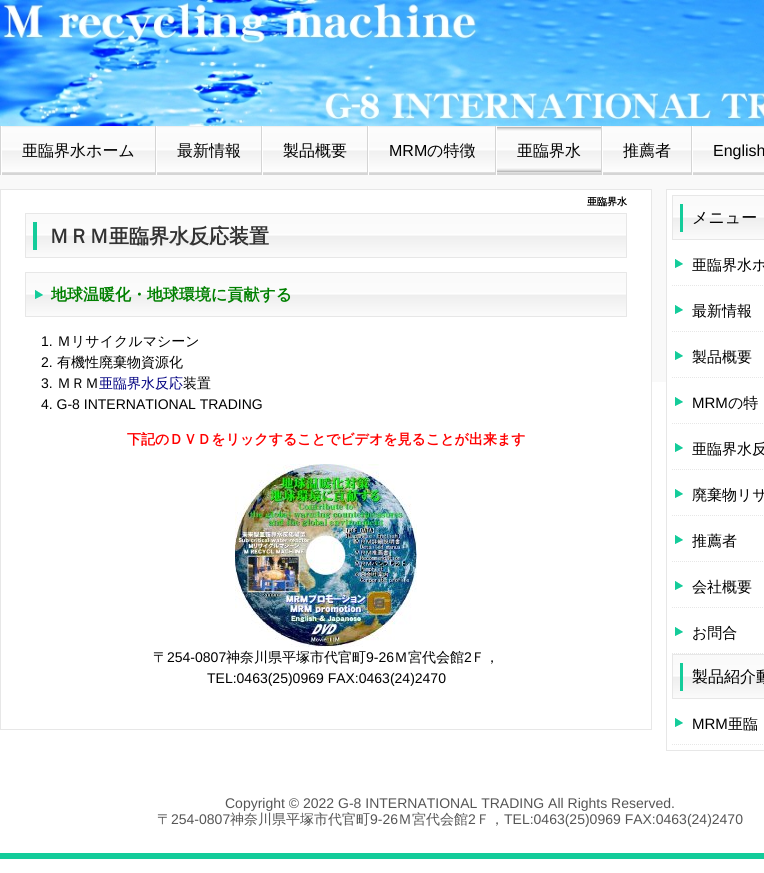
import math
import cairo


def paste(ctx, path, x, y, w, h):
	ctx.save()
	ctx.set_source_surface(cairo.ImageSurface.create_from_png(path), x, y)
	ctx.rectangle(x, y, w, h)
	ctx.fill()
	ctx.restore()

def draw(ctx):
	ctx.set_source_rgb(1, 1, 1)
	ctx.paint()
	paste(ctx, 'media/1.png', 0, 175, 764, 207)
	paste(ctx, 'media/2.png', 0, 0, 764, 126)
	paste(ctx, 'media/3.png', 2, 126, 762, 49)
	ctx.set_source_rgb(0.835, 0.835, 0.835)
	ctx.rectangle(0, 126, 1, 49)
	ctx.fill()
	ctx.rectangle(155, 126, 1, 49)
	ctx.fill()
	ctx.select_font_face('WenQuanYi Zen Hei Medium')
	ctx.set_font_size(16)
	ctx.set_source_rgb(0, 0, 0)
	ctx.move_to(22, 156)
	ctx.show_text('亜臨界水ホーム')
	ctx.set_source_rgb(0.835, 0.835, 0.835)
	ctx.rectangle(261, 126, 1, 49)
	ctx.fill()
	ctx.set_source_rgb(1, 1, 1)
	ctx.rectangle(156, 126, 1, 49)
	ctx.fill()
	ctx.set_source_rgb(0, 0, 0)
	ctx.move_to(177, 156)
	ctx.show_text('最新情報')
	ctx.set_source_rgb(0.835, 0.835, 0.835)
	ctx.rectangle(367, 126, 1, 49)
	ctx.fill()
	ctx.set_source_rgb(1, 1, 1)
	ctx.rectangle(262, 126, 1, 49)
	ctx.fill()
	ctx.set_source_rgb(0, 0, 0)
	ctx.move_to(283, 156)
	ctx.show_text('製品概要')
	ctx.set_source_rgb(0.835, 0.835, 0.835)
	ctx.rectangle(495, 126, 1, 49)
	ctx.fill()
	ctx.set_source_rgb(1, 1, 1)
	ctx.rectangle(368, 126, 1, 49)
	ctx.fill()
	ctx.select_font_face('Liberation Sans')
	ctx.set_source_rgb(0, 0, 0)
	ctx.move_to(389, 156)
	ctx.show_text('MRM')
	ctx.select_font_face('WenQuanYi Zen Hei Medium')
	ctx.move_to(427, 156)
	ctx.show_text('の特徴')
	paste(ctx, 'media/4.png', 497, 127, 104, 45)
	ctx.set_source_rgb(0.835, 0.835, 0.835)
	ctx.rectangle(601, 126, 1, 49)
	ctx.fill()
	ctx.set_source_rgb(1, 1, 1)
	ctx.rectangle(496, 126, 1, 49)
	ctx.fill()
	ctx.set_source_rgb(0, 0, 0)
	ctx.move_to(517, 156)
	ctx.show_text('亜臨界水')
	ctx.set_source_rgb(0.835, 0.835, 0.835)
	ctx.rectangle(691, 126, 1, 49)
	ctx.fill()
	ctx.set_source_rgb(1, 1, 1)
	ctx.rectangle(602, 126, 1, 49)
	ctx.fill()
	ctx.set_source_rgb(0, 0, 0)
	ctx.move_to(623, 156)
	ctx.show_text('推薦者')
	ctx.set_source_rgb(1, 1, 1)
	ctx.rectangle(692, 126, 1, 49)
	ctx.fill()
	ctx.select_font_face('Liberation Sans')
	ctx.set_source_rgb(0, 0, 0)
	ctx.move_to(713, 156)
	ctx.show_text('English')
	ctx.set_source_rgb(1, 1, 1)
	ctx.rectangle(1, 190, 650, 192)
	ctx.fill()
	ctx.rectangle(0.5, 189.5, 651, 540)
	ctx.set_source_rgb(0.906, 0.906, 0.906)
	ctx.set_line_width(1)
	ctx.stroke()
	ctx.select_font_face('WenQuanYi Zen Hei', cairo.FONT_SLANT_NORMAL, cairo.FONT_WEIGHT_BOLD)
	ctx.set_font_size(10)
	ctx.set_source_rgb(0, 0, 0)
	ctx.move_to(587, 205)
	ctx.show_text('亜臨界水')
	paste(ctx, 'media/5.png', 25, 213, 602, 45)
	ctx.set_font_size(20)
	ctx.set_source_rgb(0.2, 0.2, 0.2)
	ctx.move_to(49, 243)
	ctx.show_text('ＭＲＭ亜臨界水反応装置')
	paste(ctx, 'media/6.png', 25, 272, 602, 45)
	ctx.set_font_size(16)
	ctx.set_source_rgb(0, 0.502, 0)
	ctx.move_to(51, 300)
	ctx.show_text('地球温暖化・地球環境に貢献する')
	ctx.select_font_face('Liberation Sans')
	ctx.set_font_size(14)
	ctx.set_source_rgb(0, 0, 0)
	ctx.move_to(41, 346)
	ctx.show_text('1.')
	ctx.select_font_face('WenQuanYi Zen Hei Medium')
	ctx.move_to(57, 346)
	ctx.show_text('Ｍリサイクルマシーン')
	ctx.select_font_face('Liberation Sans')
	ctx.move_to(41, 367)
	ctx.show_text('2.')
	ctx.select_font_face('WenQuanYi Zen Hei Medium')
	ctx.move_to(57, 367)
	ctx.show_text('有機性廃棄物資源化')
	ctx.select_font_face('Liberation Sans')
	ctx.move_to(41, 388)
	ctx.show_text('3.')
	ctx.select_font_face('WenQuanYi Zen Hei Medium')
	ctx.move_to(57, 388)
	ctx.show_text('ＭＲＭ')
	ctx.set_source_rgb(0, 0, 0.502)
	ctx.move_to(99, 388)
	ctx.show_text('亜臨界水反応')
	ctx.set_source_rgb(0, 0, 0)
	ctx.move_to(183, 388)
	ctx.show_text('装置')
	ctx.select_font_face('Liberation Sans')
	ctx.move_to(41, 409)
	ctx.show_text('4. G-8 INTERNATIONAL TRADING')
	ctx.select_font_face('WenQuanYi Zen Hei', cairo.FONT_SLANT_NORMAL, cairo.FONT_WEIGHT_BOLD)
	ctx.set_source_rgb(1, 0, 0)
	ctx.move_to(127, 444)
	ctx.show_text('下記のＤＶＤをリックすることでビデオを見ることが出来ます')
	paste(ctx, 'media/7.png', 235, 464, 182, 183)
	ctx.select_font_face('WenQuanYi Zen Hei Medium')
	ctx.set_source_rgb(0, 0, 0)
	ctx.move_to(153, 662)
	ctx.show_text('〒')
	ctx.select_font_face('Liberation Sans')
	ctx.move_to(167, 662)
	ctx.show_text('254-0807')
	ctx.select_font_face('WenQuanYi Zen Hei Medium')
	ctx.move_to(226, 662)
	ctx.show_text('神奈川県平塚市代官町')
	ctx.select_font_face('Liberation Sans')
	ctx.move_to(366, 662)
	ctx.show_text('9-26')
	ctx.select_font_face('WenQuanYi Zen Hei Medium')
	ctx.move_to(394, 662)
	ctx.show_text('Ｍ宮代会館')
	ctx.select_font_face('Liberation Sans')
	ctx.move_to(464, 662)
	ctx.show_text('2')
	ctx.select_font_face('WenQuanYi Zen Hei Medium')
	ctx.move_to(471, 662)
	ctx.show_text('Ｆ，')
	ctx.select_font_face('Liberation Sans')
	ctx.move_to(207, 683)
	ctx.show_text('TEL:0463(25)0969 FAX:0463(24)2470')
	ctx.set_source_rgb(1, 1, 1)
	ctx.rectangle(667, 190, 97, 192)
	ctx.fill()
	ctx.rectangle(666.5, 189.5, 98, 561)
	ctx.set_source_rgb(0.906, 0.906, 0.906)
	ctx.stroke()
	paste(ctx, 'media/8.png', 672, 195, 92, 45)
	ctx.select_font_face('WenQuanYi Zen Hei Medium')
	ctx.set_font_size(16)
	ctx.set_source_rgb(0, 0, 0)
	ctx.move_to(692, 223)
	ctx.show_text('メニュー')
	paste(ctx, 'media/9.png', 675, 259, 8, 9)
	ctx.new_path()
	ctx.move_to(672, 285.5)
	ctx.line_to(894, 285.5)
	ctx.set_source_rgb(0.906, 0.906, 0.906)
	ctx.set_dash([1, 1])
	ctx.stroke()
	ctx.set_font_size(15)
	ctx.set_source_rgb(0, 0, 0)
	ctx.move_to(692, 270)
	ctx.show_text('亜臨界水ホ')
	paste(ctx, 'media/9.png', 675, 305, 8, 9)
	ctx.new_path()
	ctx.move_to(672, 331.5)
	ctx.line_to(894, 331.5)
	ctx.set_source_rgb(0.906, 0.906, 0.906)
	ctx.stroke()
	ctx.set_source_rgb(0, 0, 0)
	ctx.move_to(692, 316)
	ctx.show_text('最新情報')
	paste(ctx, 'media/9.png', 675, 351, 8, 9)
	ctx.new_path()
	ctx.move_to(672, 377.5)
	ctx.line_to(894, 377.5)
	ctx.set_source_rgb(0.906, 0.906, 0.906)
	ctx.stroke()
	ctx.set_source_rgb(0, 0, 0)
	ctx.move_to(692, 362)
	ctx.show_text('製品概要')
	paste(ctx, 'media/9.png', 675, 397, 8, 9)
	ctx.new_path()
	ctx.move_to(672, 423.5)
	ctx.line_to(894, 423.5)
	ctx.set_source_rgb(0.906, 0.906, 0.906)
	ctx.stroke()
	ctx.select_font_face('Liberation Sans')
	ctx.set_source_rgb(0, 0, 0)
	ctx.move_to(692, 408)
	ctx.show_text('MRM')
	ctx.select_font_face('WenQuanYi Zen Hei Medium')
	ctx.move_to(728, 408)
	ctx.show_text('の特')
	paste(ctx, 'media/9.png', 675, 443, 8, 9)
	ctx.new_path()
	ctx.move_to(672, 469.5)
	ctx.line_to(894, 469.5)
	ctx.set_source_rgb(0.906, 0.906, 0.906)
	ctx.stroke()
	ctx.set_source_rgb(0, 0, 0)
	ctx.move_to(692, 454)
	ctx.show_text('亜臨界水反')
	paste(ctx, 'media/9.png', 675, 489, 8, 9)
	ctx.new_path()
	ctx.move_to(672, 515.5)
	ctx.line_to(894, 515.5)
	ctx.set_source_rgb(0.906, 0.906, 0.906)
	ctx.stroke()
	ctx.set_source_rgb(0, 0, 0)
	ctx.move_to(692, 500)
	ctx.show_text('廃棄物リサ')
	paste(ctx, 'media/9.png', 675, 535, 8, 9)
	ctx.new_path()
	ctx.move_to(672, 561.5)
	ctx.line_to(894, 561.5)
	ctx.set_source_rgb(0.906, 0.906, 0.906)
	ctx.stroke()
	ctx.set_source_rgb(0, 0, 0)
	ctx.move_to(692, 546)
	ctx.show_text('推薦者')
	paste(ctx, 'media/9.png', 675, 581, 8, 9)
	ctx.new_path()
	ctx.move_to(672, 607.5)
	ctx.line_to(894, 607.5)
	ctx.set_source_rgb(0.906, 0.906, 0.906)
	ctx.stroke()
	ctx.set_source_rgb(0, 0, 0)
	ctx.move_to(692, 592)
	ctx.show_text('会社概要')
	paste(ctx, 'media/9.png', 675, 627, 8, 9)
	ctx.new_path()
	ctx.move_to(672, 653.5)
	ctx.line_to(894, 653.5)
	ctx.set_source_rgb(0.906, 0.906, 0.906)
	ctx.stroke()
	ctx.set_source_rgb(0, 0, 0)
	ctx.move_to(692, 638)
	ctx.show_text('お問合')
	paste(ctx, 'media/8.png', 672, 654, 92, 45)
	ctx.set_font_size(16)
	ctx.move_to(692, 682)
	ctx.show_text('製品紹介動')
	paste(ctx, 'media/9.png', 675, 718, 8, 9)
	ctx.new_path()
	ctx.move_to(672, 744.5)
	ctx.line_to(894, 744.5)
	ctx.set_source_rgb(0.906, 0.906, 0.906)
	ctx.stroke()
	ctx.select_font_face('Liberation Sans')
	ctx.set_font_size(15)
	ctx.set_source_rgb(0, 0, 0)
	ctx.move_to(692, 729)
	ctx.show_text('MRM')
	ctx.select_font_face('WenQuanYi Zen Hei Medium')
	ctx.move_to(728, 729)
	ctx.show_text('亜臨')
	ctx.select_font_face('Liberation Sans')
	ctx.set_font_size(14)
	ctx.set_source_rgb(0.333, 0.333, 0.333)
	ctx.move_to(225, 808)
	ctx.show_text('Copyright © 2022 G-8 INTERNATIONAL TRADING All Rights Reserved.')
	ctx.select_font_face('WenQuanYi Zen Hei Medium')
	ctx.move_to(157, 824)
	ctx.show_text('〒')
	ctx.select_font_face('Liberation Sans')
	ctx.move_to(171, 824)
	ctx.show_text('254-0807')
	ctx.select_font_face('WenQuanYi Zen Hei Medium')
	ctx.move_to(230, 824)
	ctx.show_text('神奈川県平塚市代官町')
	ctx.select_font_face('Liberation Sans')
	ctx.move_to(370, 824)
	ctx.show_text('9-26')
	ctx.select_font_face('WenQuanYi Zen Hei Medium')
	ctx.move_to(398, 824)
	ctx.show_text('Ｍ宮代会館')
	ctx.select_font_face('Liberation Sans')
	ctx.move_to(468, 824)
	ctx.show_text('2')
	ctx.select_font_face('WenQuanYi Zen Hei Medium')
	ctx.move_to(476, 824)
	ctx.show_text('Ｆ，')
	ctx.select_font_face('Liberation Sans')
	ctx.move_to(504, 824)
	ctx.show_text('TEL:0463(25)0969 FAX:0463(24)2470')
	ctx.set_source_rgb(0.078, 0.8, 0.604)
	ctx.rectangle(0, 853, 764, 6)
	ctx.fill()


surface = cairo.ImageSurface(cairo.FORMAT_RGB24, 764, 873)
ctx = cairo.Context(surface)
options = cairo.FontOptions()
options.set_hint_metrics(cairo.HINT_METRICS_OFF)
options.set_hint_style(cairo.HINT_STYLE_NONE)
ctx.set_font_options(options)
ctx.set_miter_limit(4)
draw(ctx)
surface.write_to_png('image.png')
